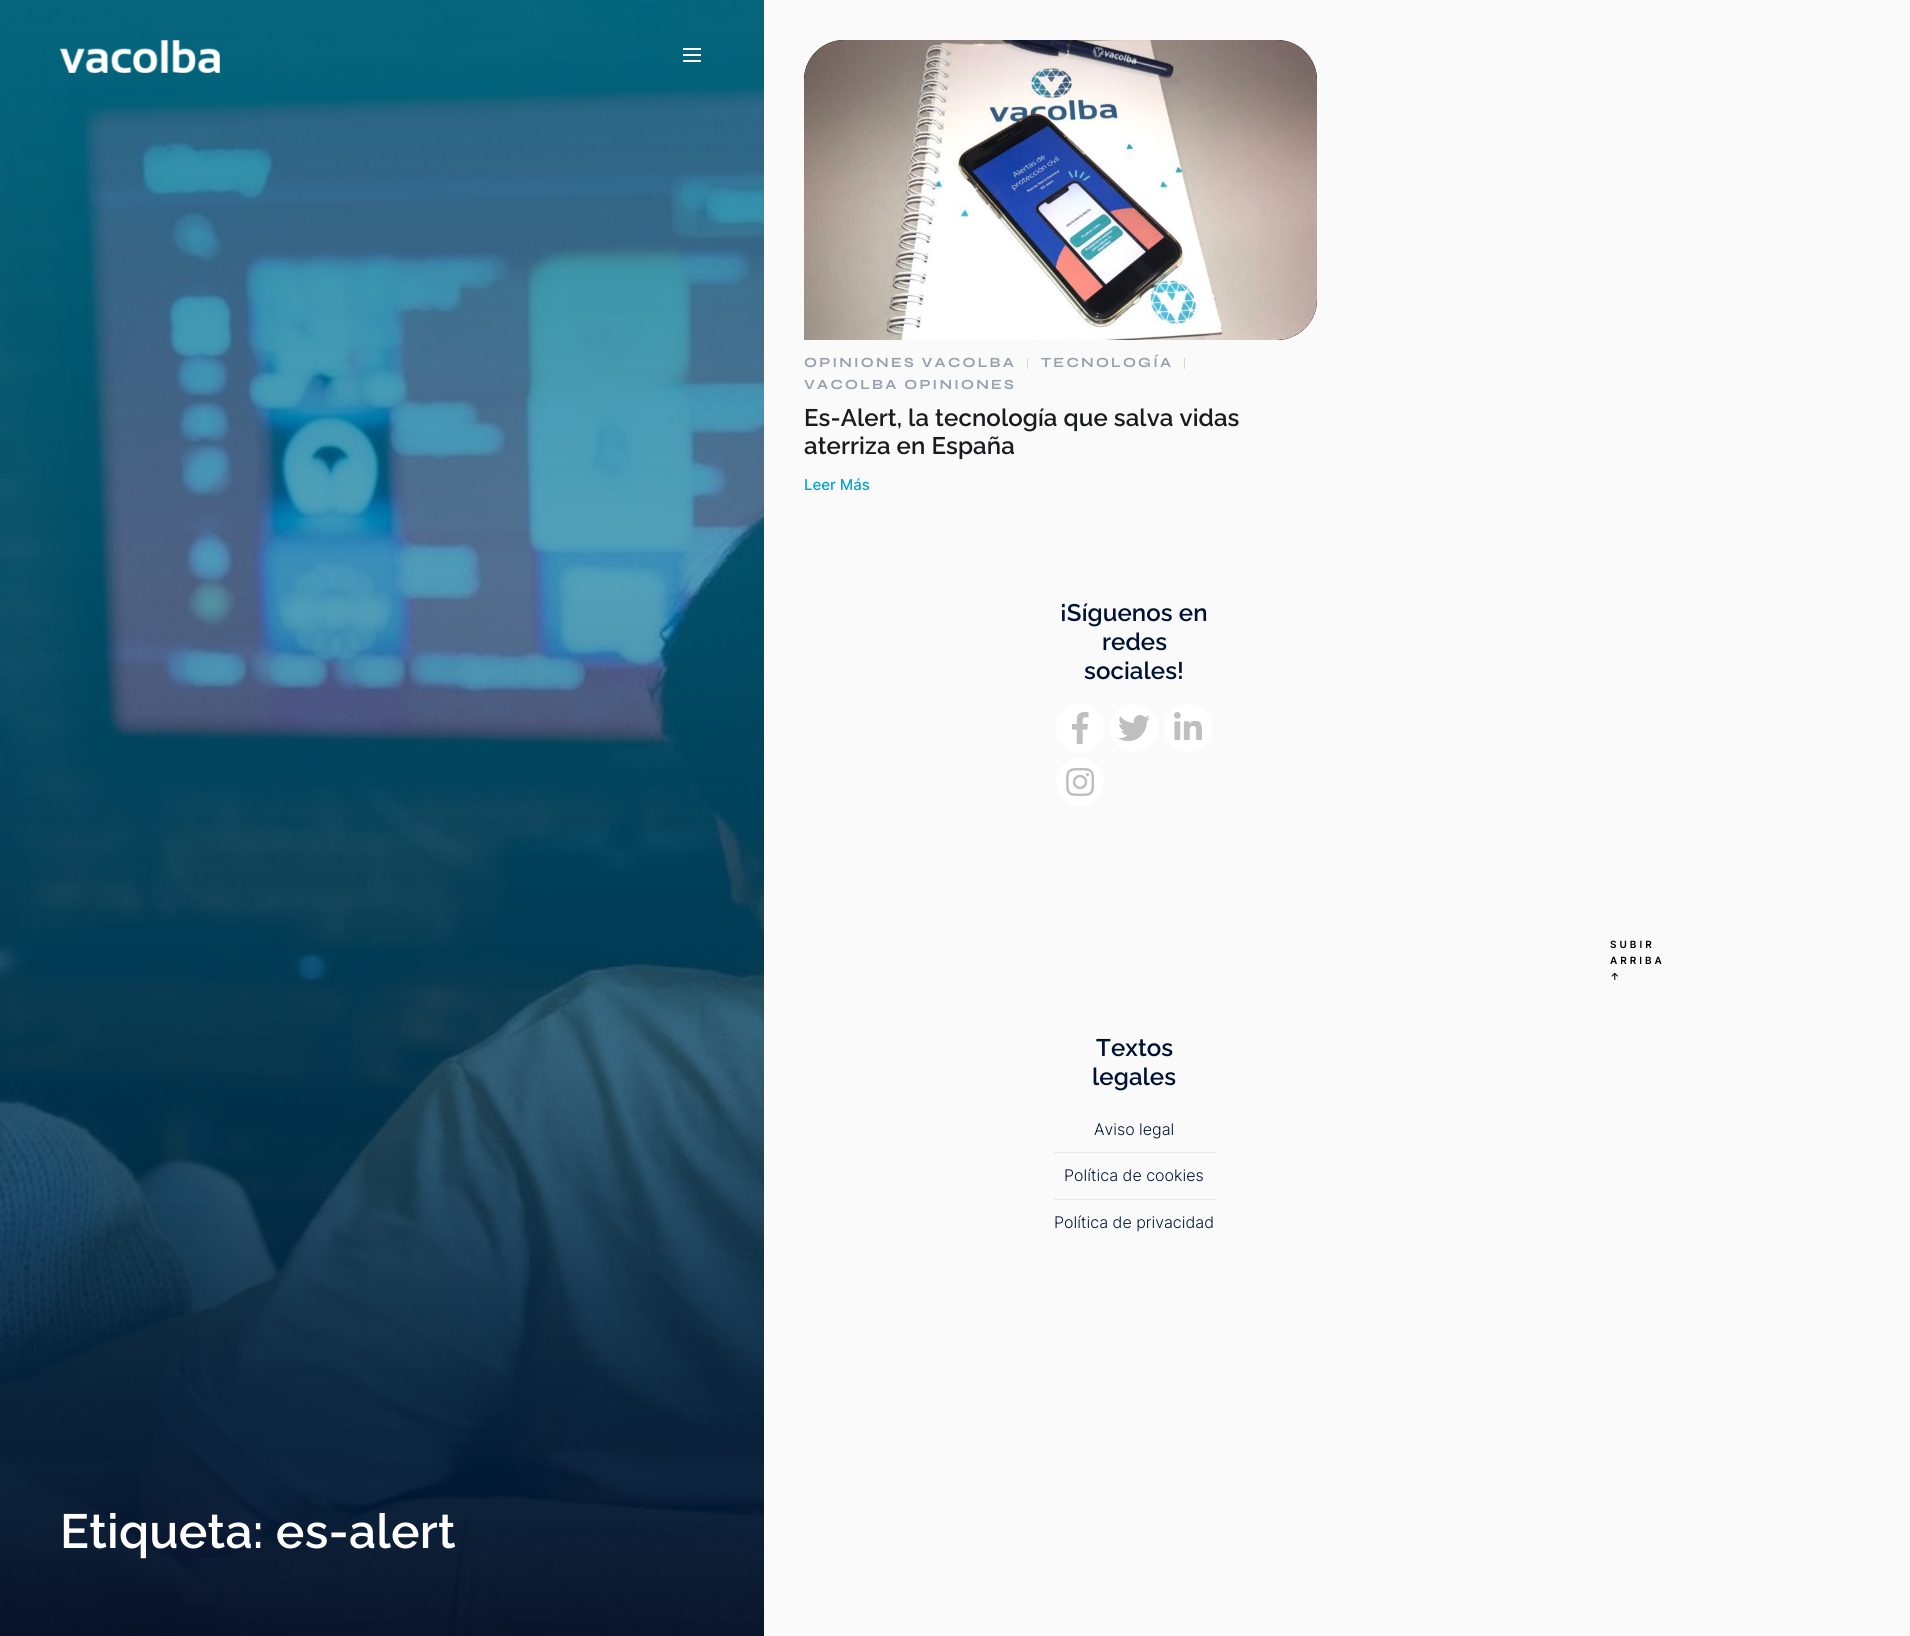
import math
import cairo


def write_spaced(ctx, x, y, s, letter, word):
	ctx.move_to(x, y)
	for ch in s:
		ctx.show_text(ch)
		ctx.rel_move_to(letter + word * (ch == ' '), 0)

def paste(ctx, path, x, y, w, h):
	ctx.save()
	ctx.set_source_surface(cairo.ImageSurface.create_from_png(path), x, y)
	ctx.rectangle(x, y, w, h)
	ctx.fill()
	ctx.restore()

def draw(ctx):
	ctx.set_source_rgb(0.98, 0.98, 0.98)
	ctx.paint()
	ctx.set_source_rgb(0, 0, 0)
	ctx.new_path()
	ctx.move_to(844, 40)
	ctx.line_to(1277, 40)
	ctx.curve_to(1299, 40, 1317, 58, 1317, 80)
	ctx.line_to(1317, 300)
	ctx.curve_to(1317, 322, 1299, 340, 1277, 340)
	ctx.line_to(804, 340)
	ctx.line_to(804, 80)
	ctx.curve_to(804, 58, 822, 40, 844, 40)
	ctx.close_path()
	ctx.fill()
	paste(ctx, 'media/1.png', 804, 40, 513, 300)
	ctx.select_font_face('Syne', cairo.FONT_SLANT_NORMAL, cairo.FONT_WEIGHT_BOLD)
	ctx.set_font_size(14)
	ctx.set_source_rgb(0.6, 0.627, 0.678)
	write_spaced(ctx, 804, 367, 'OPINIONES VACOLBA', 2.25, 0)
	ctx.set_source_rgb(0.847, 0.847, 0.847)
	ctx.rectangle(1027, 358, 1, 11)
	ctx.fill()
	ctx.set_source_rgb(0.6, 0.627, 0.678)
	write_spaced(ctx, 1041, 367, 'TECNOLOGÍA', 2.25, 0)
	ctx.set_source_rgb(0.847, 0.847, 0.847)
	ctx.rectangle(1184, 358, 1, 11)
	ctx.fill()
	ctx.set_source_rgb(0.6, 0.627, 0.678)
	write_spaced(ctx, 804, 389, 'VACOLBA OPINIONES', 2.25, 0)
	ctx.select_font_face('Raleway SemiBold')
	ctx.set_font_size(24)
	ctx.set_source_rgb(0.102, 0.106, 0.122)
	write_spaced(ctx, 804, 426, 'Es-Alert, la tecnología que salva vidas', 0.1, 0)
	write_spaced(ctx, 804, 454, 'aterriza en España', 0.1, 0)
	ctx.select_font_face('Inter Medium')
	ctx.set_font_size(15)
	ctx.set_source_rgb(0, 0.651, 0.808)
	ctx.move_to(804, 490)
	ctx.show_text('Leer Más')
	ctx.select_font_face('Raleway SemiBold')
	ctx.set_font_size(24)
	ctx.set_source_rgb(0, 0.071, 0.2)
	for x, y, s in [
		(1060, 621, '¡Síguenos en'),
		(1102, 650, 'redes'),
		(1084, 679, 'sociales!'),
	]:
		write_spaced(ctx, x, y, s, 0.1, 0)
	ctx.set_source_rgb(1, 1, 1)
	ctx.new_path()
	ctx.arc(1080, 728, 24, 0, 2 * math.pi)
	ctx.fill()
	paste(ctx, 'media/2.png', 1072, 712, 17, 32)
	ctx.arc(1134, 728, 24, 0, 2 * math.pi)
	ctx.fill()
	paste(ctx, 'media/3.png', 1118, 715, 32, 26)
	ctx.arc(1188, 728, 24, 0, 2 * math.pi)
	ctx.fill()
	paste(ctx, 'media/4.png', 1174, 712, 28, 28)
	ctx.arc(1080, 782, 24, 0, 2 * math.pi)
	ctx.fill()
	paste(ctx, 'media/5.png', 1066, 768, 28, 28)
	ctx.set_source_rgb(0, 0.071, 0.2)
	write_spaced(ctx, 1096, 1056, 'Textos', 0.1, 0)
	write_spaced(ctx, 1092, 1085, 'legales', 0.1, 0)
	ctx.select_font_face('Inter Light')
	ctx.set_font_size(16)
	ctx.move_to(1094, 1135)
	ctx.show_text('Aviso legal')
	ctx.set_source_rgb(0.914, 0.925, 0.937)
	ctx.rectangle(1053, 1152, 163, 1)
	ctx.fill()
	ctx.set_source_rgb(0, 0.071, 0.2)
	ctx.move_to(1064, 1181)
	ctx.show_text('Política de cookies')
	ctx.set_source_rgb(0.914, 0.925, 0.937)
	ctx.rectangle(1053, 1199, 163, 1)
	ctx.fill()
	ctx.set_source_rgb(0, 0.071, 0.2)
	ctx.move_to(1054, 1228)
	ctx.show_text('Política de privacidad')
	ctx.select_font_face('Inter SemiBold')
	ctx.set_font_size(10)
	ctx.set_source_rgb(0, 0, 0)
	for x, y, s in [
		(1610, 948, 'SUBIR'),
		(1610, 964, 'ARRIBA'),
		(1610, 980, '↑'),
	]:
		write_spaced(ctx, x, y, s, 3, 0)
	paste(ctx, 'media/6.png', 0, 0, 764, 1636)
	paste(ctx, 'media/7.png', 60, 40, 160, 33)
	paste(ctx, 'media/8.png', 683, 48, 18, 14)
	ctx.select_font_face('Raleway SemiBold')
	ctx.set_font_size(48)
	ctx.set_source_rgb(1, 1, 1)
	write_spaced(ctx, 60, 1548, 'Etiqueta: es-alert', 0.25, 0)


surface = cairo.ImageSurface(cairo.FORMAT_RGB24, 1910, 1636)
ctx = cairo.Context(surface)
options = cairo.FontOptions()
options.set_hint_metrics(cairo.HINT_METRICS_OFF)
options.set_hint_style(cairo.HINT_STYLE_NONE)
ctx.set_font_options(options)
ctx.set_miter_limit(4)
draw(ctx)
surface.write_to_png('image.png')
